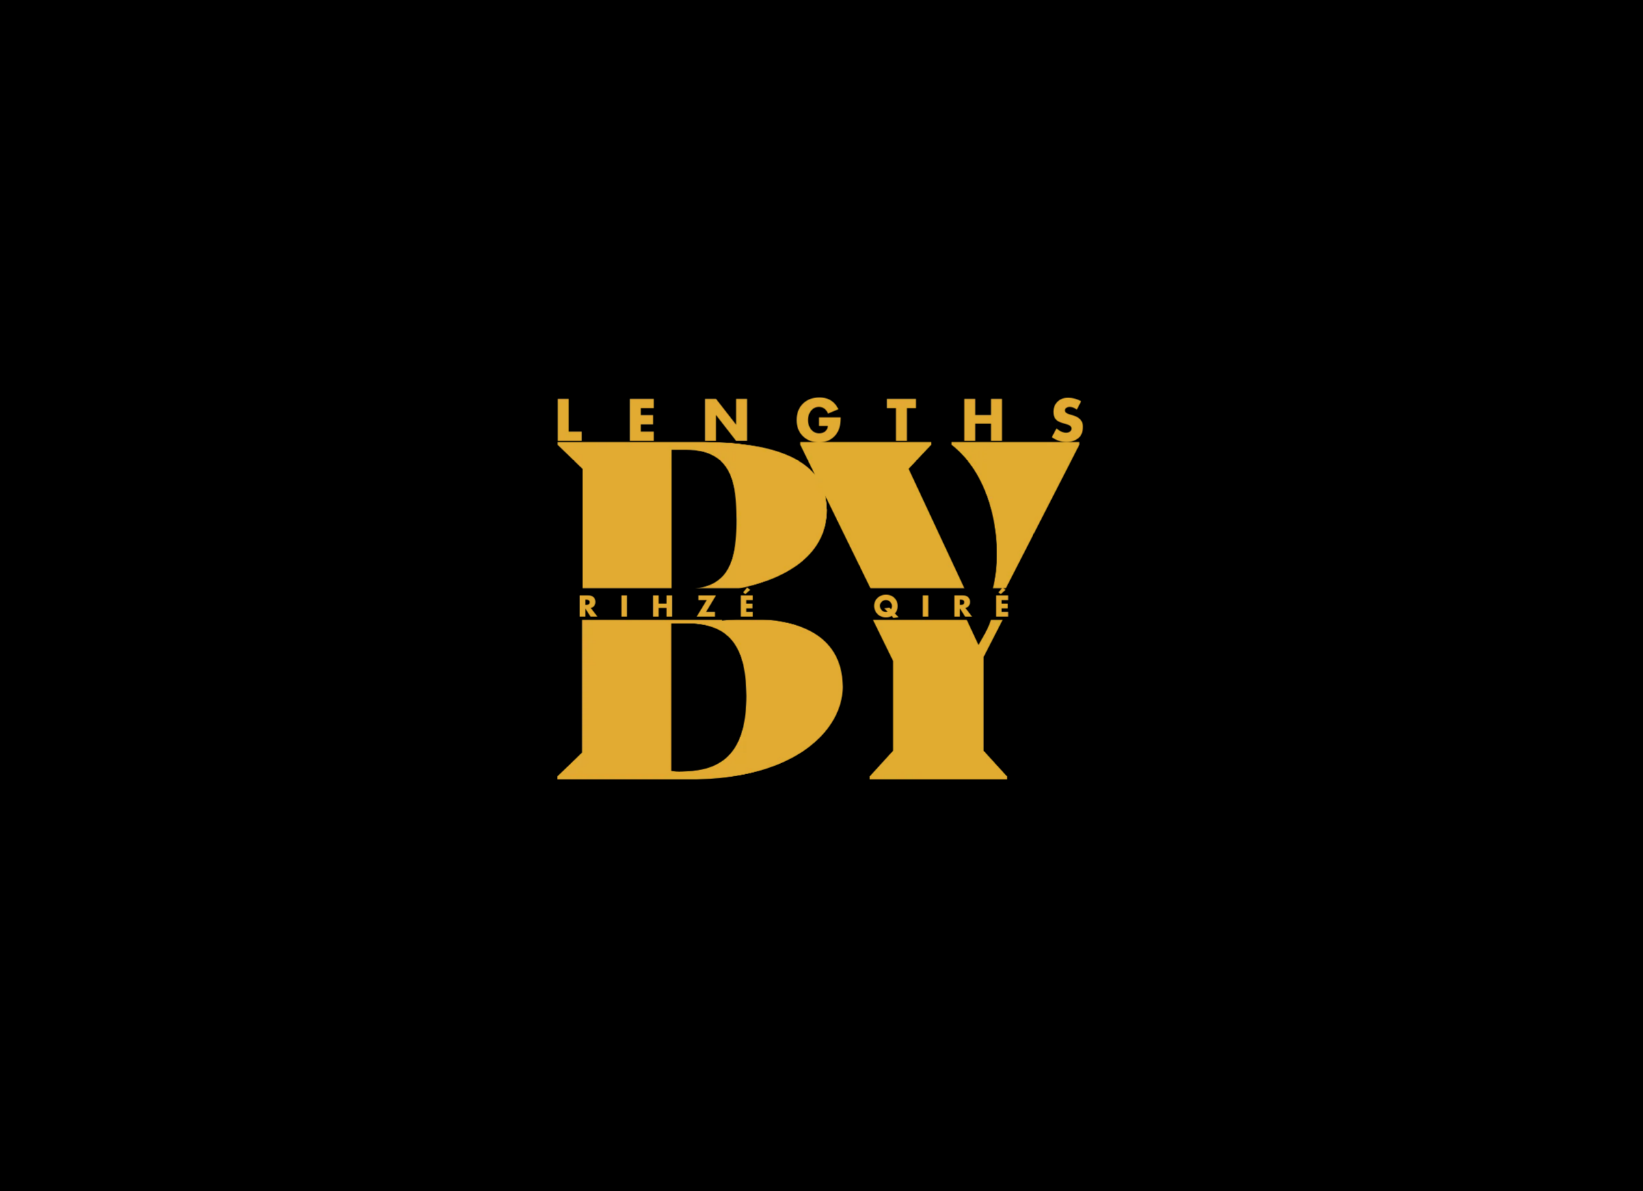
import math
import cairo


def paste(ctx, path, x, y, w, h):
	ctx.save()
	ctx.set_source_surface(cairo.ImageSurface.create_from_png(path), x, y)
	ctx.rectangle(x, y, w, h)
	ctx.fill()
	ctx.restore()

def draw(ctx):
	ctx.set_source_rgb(0, 0, 0)
	ctx.paint()
	paste(ctx, 'media/1.png', 557, 397, 527, 383)


surface = cairo.ImageSurface(cairo.FORMAT_RGB24, 1643, 1191)
ctx = cairo.Context(surface)
options = cairo.FontOptions()
options.set_hint_metrics(cairo.HINT_METRICS_OFF)
options.set_hint_style(cairo.HINT_STYLE_NONE)
ctx.set_font_options(options)
ctx.set_miter_limit(4)
draw(ctx)
surface.write_to_png('image.png')
